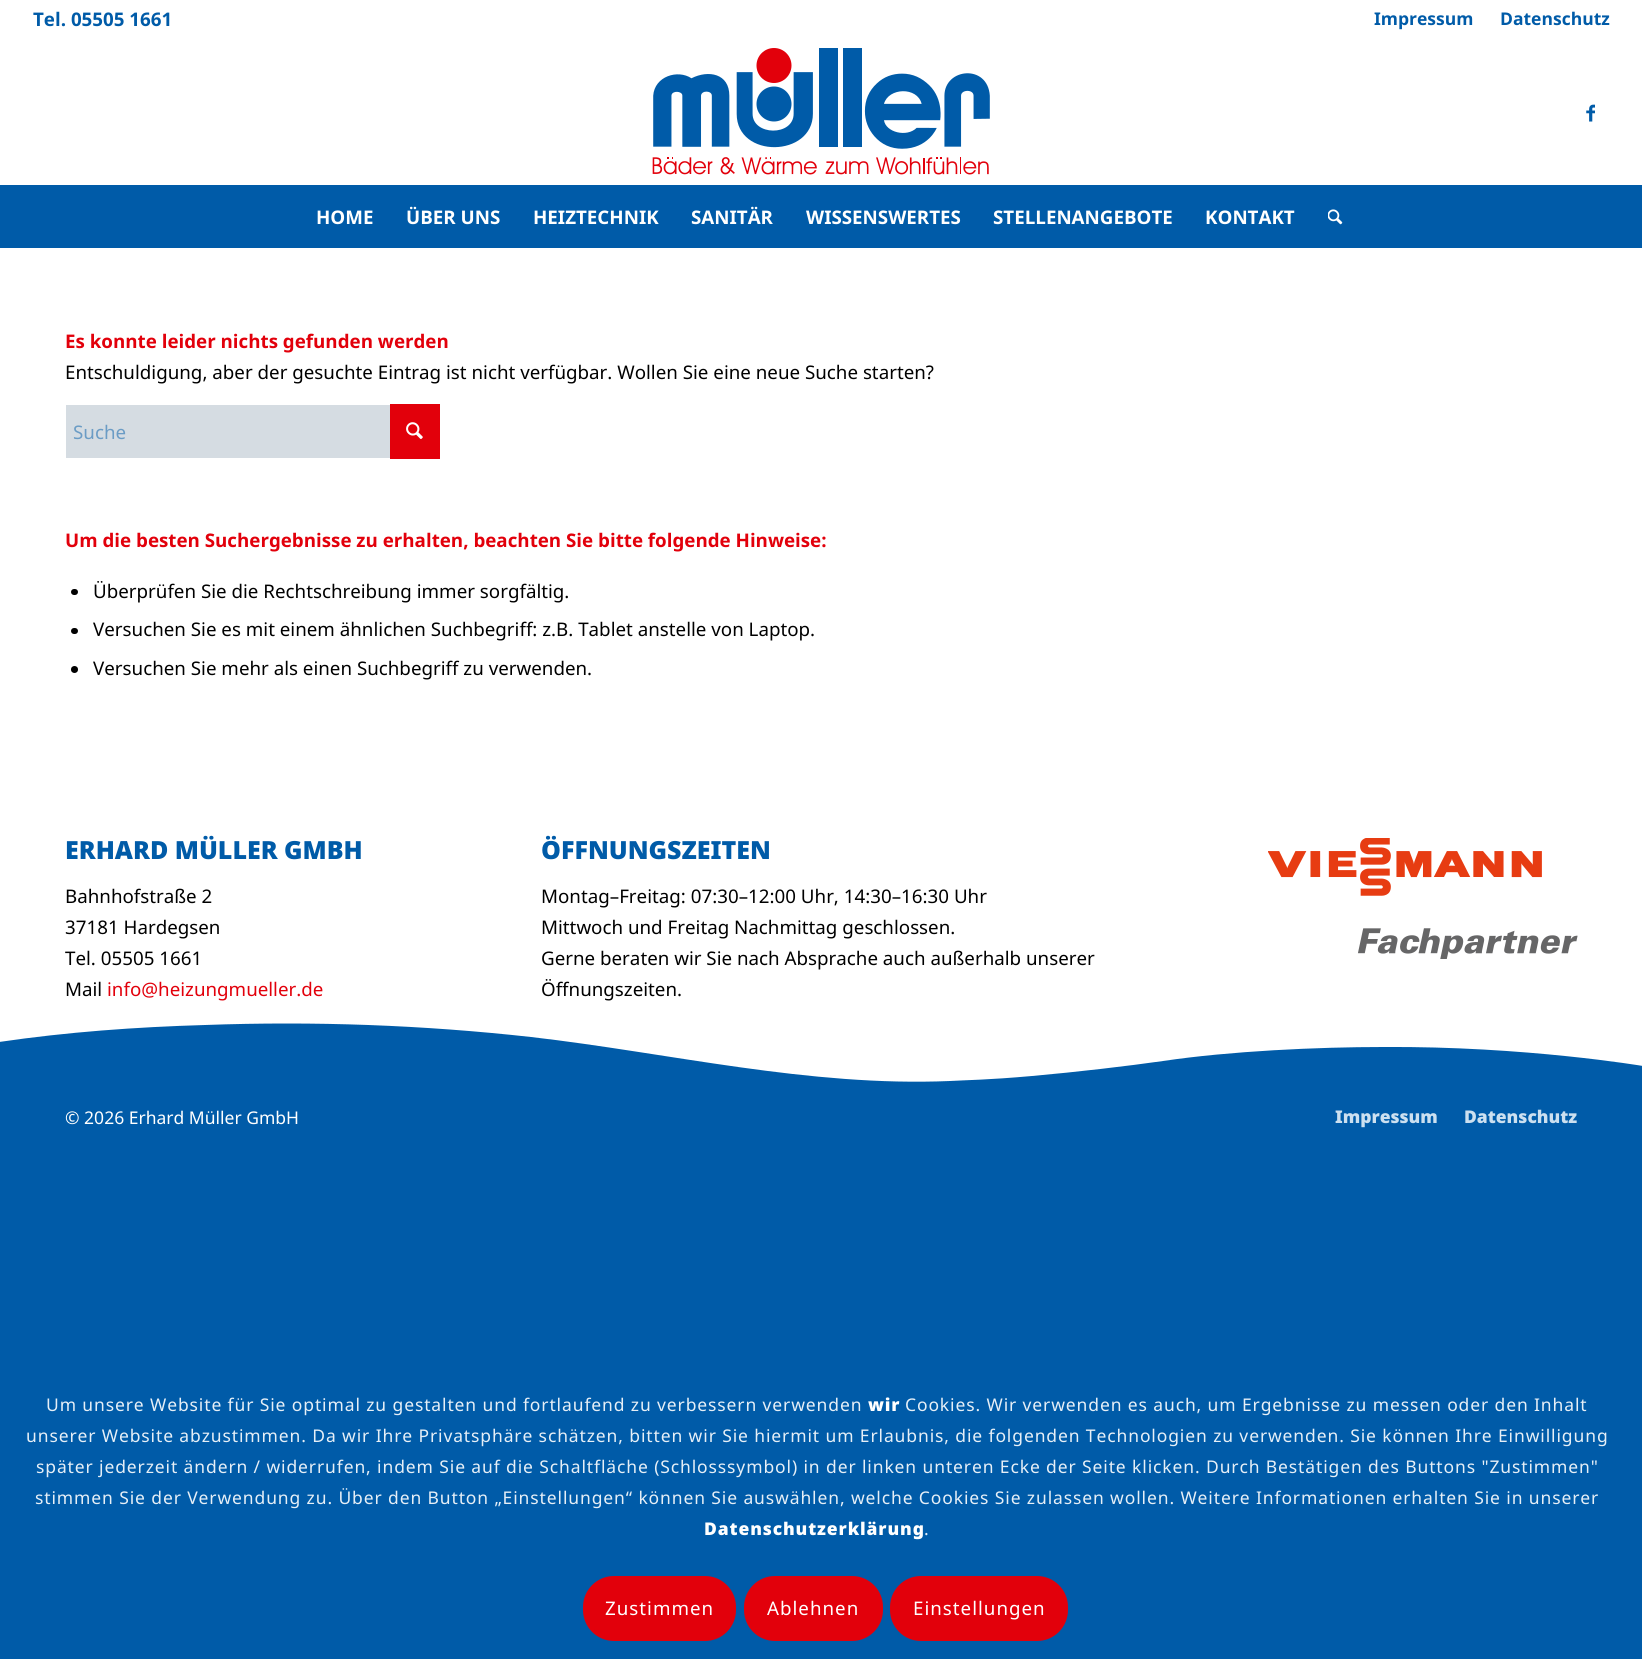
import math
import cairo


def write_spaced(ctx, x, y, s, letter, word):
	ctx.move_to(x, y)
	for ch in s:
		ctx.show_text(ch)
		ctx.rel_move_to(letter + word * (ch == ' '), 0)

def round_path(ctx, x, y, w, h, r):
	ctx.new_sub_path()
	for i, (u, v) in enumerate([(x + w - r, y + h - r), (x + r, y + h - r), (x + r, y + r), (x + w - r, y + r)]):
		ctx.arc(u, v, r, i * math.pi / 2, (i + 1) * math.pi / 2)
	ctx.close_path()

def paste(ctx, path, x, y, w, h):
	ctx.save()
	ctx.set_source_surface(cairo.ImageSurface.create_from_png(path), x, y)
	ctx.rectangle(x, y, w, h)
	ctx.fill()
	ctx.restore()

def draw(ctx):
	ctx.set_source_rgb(0, 0.357, 0.659)
	ctx.paint()
	ctx.set_source_rgb(1, 1, 1)
	ctx.rectangle(0, 0, 1642, 1082)
	ctx.fill()
	ctx.select_font_face('Noto Sans', cairo.FONT_SLANT_NORMAL, cairo.FONT_WEIGHT_BOLD)
	ctx.set_font_size(18.75)
	ctx.set_source_rgb(0, 0.357, 0.659)
	ctx.move_to(33, 26)
	ctx.show_text('Tel. 05505 1661')
	ctx.set_font_size(17.5)
	ctx.move_to(1374, 25)
	ctx.show_text('Impressum')
	ctx.move_to(1500, 25)
	ctx.show_text('Datenschutz')
	paste(ctx, 'media/1.png', 652, 48, 338, 127)
	paste(ctx, 'media/2.png', 1586, 104, 9, 18)
	ctx.rectangle(0, 185, 1642, 63)
	ctx.fill()
	ctx.set_font_size(18.75)
	ctx.set_source_rgb(1, 1, 1)
	for x, y, s in [
		(316, 224, 'HOME'),
		(406, 224, 'ÜBER UNS'),
		(533, 224, 'HEIZTECHNIK'),
		(691, 224, 'SANITÄR'),
		(806, 224, 'WISSENSWERTES'),
		(993, 224, 'STELLENANGEBOTE'),
		(1205, 224, 'KONTAKT'),
	]:
		ctx.move_to(x, y)
		ctx.show_text(s)
	paste(ctx, 'media/3.png', 1328, 209, 15, 16)
	ctx.set_source_rgb(0.886, 0, 0.043)
	ctx.move_to(65, 348)
	ctx.show_text('Es konnte leider nichts gefunden werden')
	ctx.select_font_face('Noto Sans')
	ctx.set_source_rgb(0, 0, 0)
	ctx.move_to(65, 379)
	ctx.show_text('Entschuldigung, aber der gesuchte Eintrag ist nicht verfügbar. Wollen Sie eine neue Suche starten?')
	ctx.set_source_rgb(0.886, 0, 0.043)
	ctx.rectangle(390, 404, 50, 55)
	ctx.fill()
	ctx.set_source_rgb(0.835, 0.863, 0.886)
	ctx.rectangle(66, 405, 324, 53)
	ctx.fill()
	ctx.set_source_rgb(0.42, 0.612, 0.773)
	ctx.move_to(73, 439)
	ctx.show_text('Suche')
	paste(ctx, 'media/4.png', 406, 422, 17, 17)
	ctx.select_font_face('Noto Sans', cairo.FONT_SLANT_NORMAL, cairo.FONT_WEIGHT_BOLD)
	ctx.set_source_rgb(0.886, 0, 0.043)
	ctx.move_to(65, 547)
	ctx.show_text('Um die besten Suchergebnisse zu erhalten, beachten Sie bitte folgende Hinweise:')
	ctx.set_source_rgb(0, 0, 0)
	round_path(ctx, 71, 589, 7, 6, 3)
	ctx.fill()
	ctx.select_font_face('Noto Sans')
	ctx.move_to(93, 598)
	ctx.show_text('Überprüfen Sie die Rechtschreibung immer sorgfältig.')
	round_path(ctx, 71, 628, 7, 6, 3)
	ctx.fill()
	ctx.move_to(93, 636)
	ctx.show_text('Versuchen Sie es mit einem ähnlichen Suchbegriff: z.B. Tablet anstelle von Laptop.')
	ctx.new_path()
	ctx.arc(74.5, 669.5, 3.5, 0, 2 * math.pi)
	ctx.fill()
	ctx.move_to(93, 675)
	ctx.show_text('Versuchen Sie mehr als einen Suchbegriff zu verwenden.')
	ctx.select_font_face('Noto Sans Black')
	ctx.set_font_size(25)
	ctx.set_source_rgb(0, 0.357, 0.659)
	ctx.move_to(65, 859)
	ctx.show_text('ERHARD MÜLLER GMBH')
	ctx.select_font_face('Noto Sans')
	ctx.set_font_size(18.75)
	ctx.set_source_rgb(0, 0, 0)
	for x, y, s in [
		(65, 903, 'Bahnhofstraße 2'),
		(65, 934, '37181 Hardegsen'),
		(65, 965, 'Tel. 05505 1661'),
		(65, 996, 'Mail'),
	]:
		ctx.move_to(x, y)
		ctx.show_text(s)
	ctx.set_source_rgb(0.886, 0, 0.043)
	ctx.move_to(107, 996)
	ctx.show_text('info@heizungmueller.de')
	ctx.select_font_face('Noto Sans Black')
	ctx.set_font_size(25)
	ctx.set_source_rgb(0, 0.357, 0.659)
	ctx.move_to(541, 859)
	ctx.show_text('ÖFFNUNGSZEITEN')
	ctx.select_font_face('Noto Sans')
	ctx.set_font_size(18.75)
	ctx.set_source_rgb(0, 0, 0)
	for x, y, s in [
		(541, 903, 'Montag–Freitag: 07:30–12:00 Uhr, 14:30–16:30 Uhr'),
		(541, 934, 'Mittwoch und Freitag Nachmittag geschlossen.'),
		(541, 965, 'Gerne beraten wir Sie nach Absprache auch außerhalb unserer'),
		(541, 996, 'Öffnungszeiten.'),
	]:
		ctx.move_to(x, y)
		ctx.show_text(s)
	paste(ctx, 'media/5.png', 1268, 838, 310, 121)
	ctx.set_source_rgb(0, 0.357, 0.659)
	ctx.new_path()
	ctx.move_to(950, 1081)
	ctx.curve_to(809, 1087, 670, 1053, 531, 1037)
	ctx.curve_to(423, 1025, 314, 1021, 205, 1025)
	ctx.curve_to(136, 1027, 67, 1032, -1, 1042)
	ctx.line_to(-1, 1085)
	ctx.line_to(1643, 1085)
	ctx.line_to(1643, 1066)
	ctx.curve_to(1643, 1066, 1525, 1046, 1383, 1047)
	ctx.curve_to(1318, 1047, 1230, 1051, 1163, 1061)
	ctx.curve_to(1128, 1066, 1077, 1072, 1032, 1076)
	ctx.curve_to(987, 1080, 967, 1080, 950, 1081)
	ctx.close_path()
	ctx.fill()
	ctx.set_font_size(17.5)
	ctx.set_source_rgb(1, 1, 1)
	ctx.move_to(65, 1124)
	ctx.show_text('© 2026 Erhard Müller GmbH')
	ctx.select_font_face('Noto Sans Black')
	ctx.set_source_rgb(0.8, 0.878, 0.941)
	ctx.move_to(1335, 1123)
	ctx.show_text('Impressum')
	ctx.move_to(1464, 1123)
	ctx.show_text('Datenschutz')
	ctx.select_font_face('Noto Sans')
	ctx.set_source_rgb(0.902, 0.937, 0.965)
	write_spaced(ctx, 46, 1411, 'Um unsere Website für Sie optimal zu gestalten und fortlaufend zu verbessern verwenden', 0.88, 0)
	ctx.select_font_face('Noto Sans Black')
	ctx.set_source_rgb(1, 1, 1)
	write_spaced(ctx, 868, 1411, 'wir', 0.88, 0)
	ctx.select_font_face('Noto Sans')
	ctx.set_source_rgb(0.902, 0.937, 0.965)
	for x, y, s in [
		(905, 1411, 'Cookies. Wir verwenden es auch, um Ergebnisse zu messen oder den Inhalt'),
		(26, 1442, 'unserer Website abzustimmen. Da wir Ihre Privatsphäre schätzen, bitten wir Sie hiermit um Erlaubnis, die folgenden Technologien zu verwenden. Sie können Ihre Einwilligung'),
		(36, 1473, 'später jederzeit ändern / widerrufen, indem Sie auf die Schaltfläche (Schlosssymbol) in der linken unteren Ecke der Seite klicken. Durch Bestätigen des Buttons "Zustimmen"'),
		(35, 1504, 'stimmen Sie der Verwendung zu. Über den Button „Einstellungen“ können Sie auswählen, welche Cookies Sie zulassen wollen. Weitere Informationen erhalten Sie in unserer'),
	]:
		write_spaced(ctx, x, y, s, 0.88, 0)
	ctx.select_font_face('Noto Sans Black')
	ctx.set_source_rgb(1, 1, 1)
	write_spaced(ctx, 704, 1535, 'Datenschutzerklärung', 0.88, 0)
	ctx.select_font_face('Noto Sans')
	ctx.set_source_rgb(0.902, 0.937, 0.965)
	write_spaced(ctx, 924, 1535, '.', 0.88, 0)
	ctx.set_source_rgb(0.886, 0, 0.043)
	round_path(ctx, 584.5, 1577.5, 150, 62, 29.5)
	ctx.fill_preserve()
	ctx.set_line_width(3)
	ctx.stroke()
	ctx.set_font_size(18.75)
	ctx.set_source_rgb(1, 1, 1)
	write_spaced(ctx, 605, 1615, 'Zustimmen', 1, 0)
	ctx.set_source_rgb(0.886, 0, 0.043)
	round_path(ctx, 745.5, 1577.5, 136, 62, 29.5)
	ctx.fill_preserve()
	ctx.stroke()
	ctx.set_source_rgb(1, 1, 1)
	write_spaced(ctx, 767, 1615, 'Ablehnen', 1, 0)
	ctx.set_source_rgb(0.886, 0, 0.043)
	round_path(ctx, 891.5, 1577.5, 175, 62, 29.5)
	ctx.fill_preserve()
	ctx.stroke()
	ctx.set_source_rgb(1, 1, 1)
	write_spaced(ctx, 913, 1615, 'Einstellungen', 1, 0)


surface = cairo.ImageSurface(cairo.FORMAT_RGB24, 1642, 1659)
ctx = cairo.Context(surface)
options = cairo.FontOptions()
options.set_hint_metrics(cairo.HINT_METRICS_OFF)
options.set_hint_style(cairo.HINT_STYLE_NONE)
ctx.set_font_options(options)
ctx.set_miter_limit(4)
draw(ctx)
surface.write_to_png('image.png')
